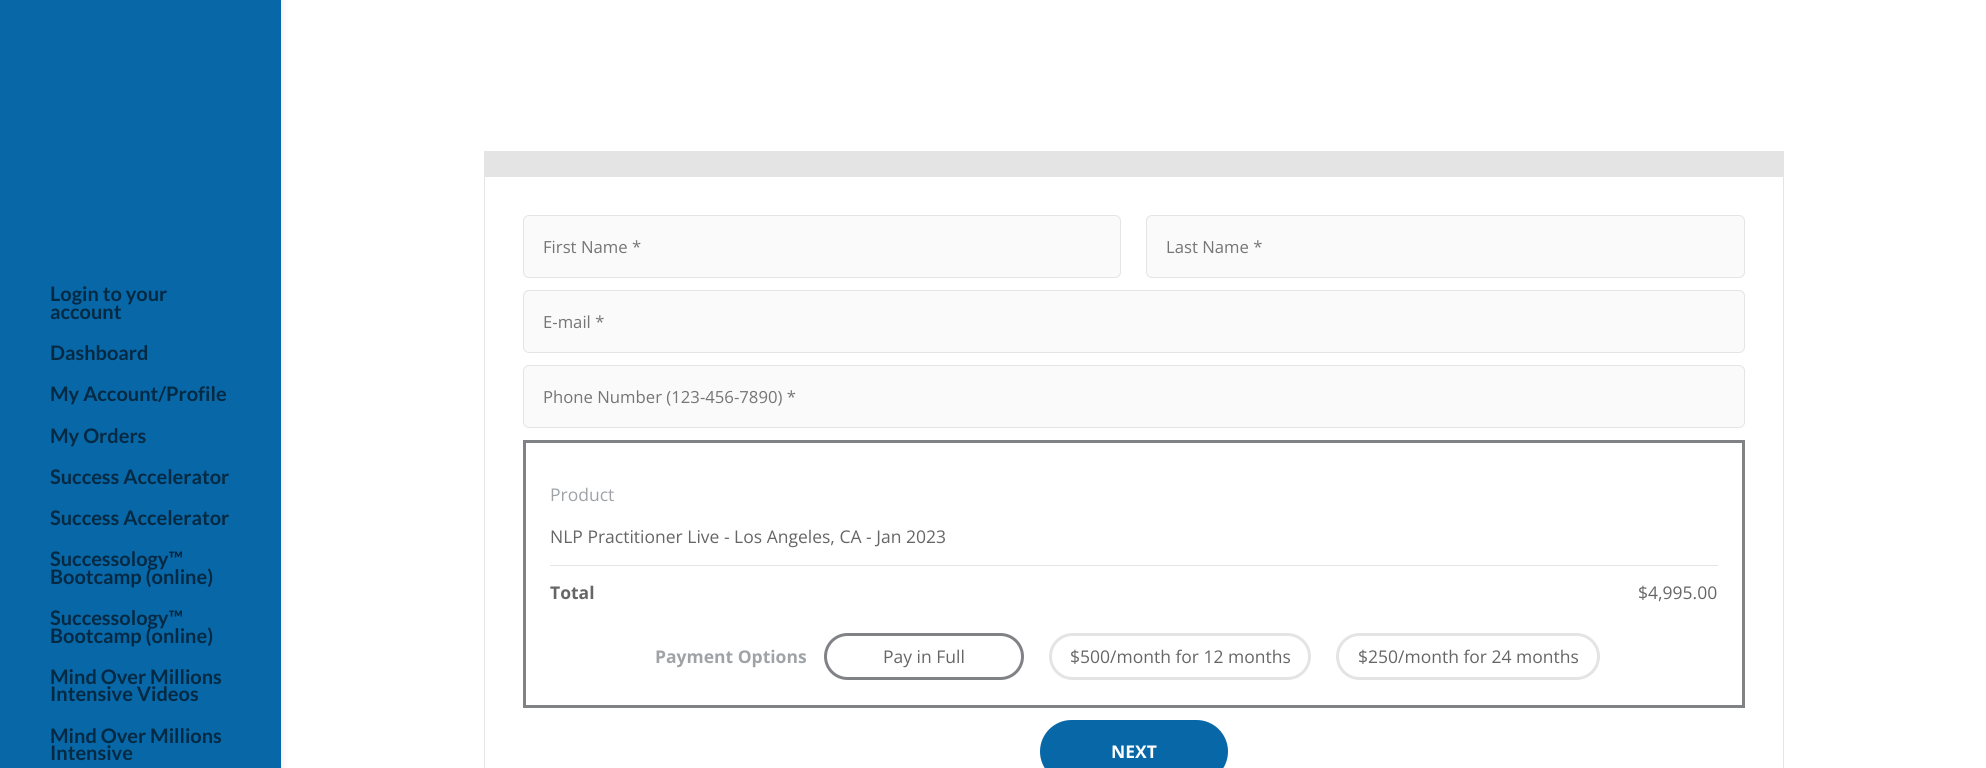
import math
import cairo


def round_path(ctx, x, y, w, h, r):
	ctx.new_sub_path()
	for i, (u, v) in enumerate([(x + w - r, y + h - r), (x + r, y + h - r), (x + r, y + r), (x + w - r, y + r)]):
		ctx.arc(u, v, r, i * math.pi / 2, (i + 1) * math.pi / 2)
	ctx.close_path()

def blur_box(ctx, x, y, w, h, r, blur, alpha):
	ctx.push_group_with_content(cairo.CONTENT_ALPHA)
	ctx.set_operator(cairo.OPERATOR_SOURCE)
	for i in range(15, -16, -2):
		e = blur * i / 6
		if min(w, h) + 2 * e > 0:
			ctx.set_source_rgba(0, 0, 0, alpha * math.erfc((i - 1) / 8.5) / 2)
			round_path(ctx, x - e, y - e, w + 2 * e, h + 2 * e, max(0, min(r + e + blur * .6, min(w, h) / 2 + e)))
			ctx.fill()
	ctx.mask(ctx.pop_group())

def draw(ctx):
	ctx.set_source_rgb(1, 1, 1)
	ctx.paint()
	ctx.set_source_rgb(0, 0, 0)
	blur_box(ctx, 0, 0, 281, 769, 0, 4.5, 0.1)
	ctx.set_source_rgb(0.035, 0.404, 0.655)
	ctx.rectangle(0, 0, 281, 768)
	ctx.fill()
	ctx.select_font_face('Lato', cairo.FONT_SLANT_NORMAL, cairo.FONT_WEIGHT_BOLD)
	ctx.set_font_size(20)
	ctx.set_source_rgb(0.016, 0.161, 0.263)
	for x, y, s in [
		(50, 301, 'Login to your'),
		(50, 319, 'account'),
		(50, 360, 'Dashboard'),
		(50, 401, 'My Account/Profile'),
		(50, 443, 'My Orders'),
		(50, 484, 'Success Accelerator'),
		(50, 525, 'Success Accelerator'),
		(50, 566, 'Successology™'),
		(50, 584, 'Bootcamp (online)'),
		(50, 625, 'Successology™'),
		(50, 643, 'Bootcamp (online)'),
		(50, 684, 'Mind Over Millions'),
		(50, 701, 'Intensive Videos'),
		(50, 743, 'Mind Over Millions'),
		(50, 760, 'Intensive'),
	]:
		ctx.move_to(x, y)
		ctx.show_text(s)
	ctx.set_source_rgb(0.894, 0.894, 0.894)
	ctx.rectangle(484, 151, 1300, 25)
	ctx.fill()
	ctx.rectangle(484.5, 176.5, 1299, 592)
	ctx.set_line_width(1)
	ctx.stroke()
	ctx.set_source_rgb(0.98, 0.98, 0.98)
	round_path(ctx, 523.5, 215.5, 597, 62, 5.5)
	ctx.fill_preserve()
	ctx.set_source_rgb(0.894, 0.894, 0.894)
	ctx.stroke()
	ctx.select_font_face('Open Sans')
	ctx.set_font_size(16.7)
	ctx.set_source_rgb(0.459, 0.459, 0.459)
	ctx.move_to(543, 253)
	ctx.show_text('First Name *')
	ctx.set_source_rgb(0.98, 0.98, 0.98)
	round_path(ctx, 1146.5, 215.5, 598, 62, 5.5)
	ctx.fill_preserve()
	ctx.set_source_rgb(0.894, 0.894, 0.894)
	ctx.stroke()
	ctx.set_source_rgb(0.459, 0.459, 0.459)
	ctx.move_to(1166, 253)
	ctx.show_text('Last Name *')
	ctx.set_source_rgb(0.98, 0.98, 0.98)
	round_path(ctx, 523.5, 290.5, 1221, 62, 5.5)
	ctx.fill_preserve()
	ctx.set_source_rgb(0.894, 0.894, 0.894)
	ctx.stroke()
	ctx.set_source_rgb(0.459, 0.459, 0.459)
	ctx.move_to(543, 328)
	ctx.show_text('E-mail *')
	ctx.set_source_rgb(0.98, 0.98, 0.98)
	round_path(ctx, 523.5, 365.5, 1221, 62, 5.5)
	ctx.fill_preserve()
	ctx.set_source_rgb(0.894, 0.894, 0.894)
	ctx.stroke()
	ctx.set_source_rgb(0.459, 0.459, 0.459)
	ctx.move_to(543, 403)
	ctx.show_text('Phone Number (123-456-7890) *')
	ctx.rectangle(524.5, 441.5, 1219, 265)
	ctx.set_source_rgb(0.506, 0.51, 0.522)
	ctx.set_line_width(3)
	ctx.stroke()
	ctx.set_font_size(17.5)
	ctx.set_source_rgb(0.624, 0.639, 0.655)
	ctx.move_to(550, 501)
	ctx.show_text('Product')
	ctx.set_source_rgb(0.894, 0.894, 0.894)
	ctx.rectangle(550, 565, 1168, 1)
	ctx.fill()
	ctx.set_source_rgb(0.4, 0.4, 0.4)
	ctx.move_to(550, 543)
	ctx.show_text('NLP Practitioner Live - Los Angeles, CA - Jan 2023')
	ctx.select_font_face('Open Sans', cairo.FONT_SLANT_NORMAL, cairo.FONT_WEIGHT_BOLD)
	ctx.move_to(550, 599)
	ctx.show_text('Total')
	ctx.select_font_face('Open Sans')
	ctx.move_to(1638, 599)
	ctx.show_text('$4,995.00')
	ctx.select_font_face('Open Sans', cairo.FONT_SLANT_NORMAL, cairo.FONT_WEIGHT_BOLD)
	ctx.set_source_rgb(0.624, 0.639, 0.655)
	ctx.move_to(655, 663)
	ctx.show_text('Payment Options')
	round_path(ctx, 825.5, 634.5, 197, 44, 22)
	ctx.set_source_rgb(0.506, 0.51, 0.522)
	ctx.stroke()
	ctx.select_font_face('Open Sans')
	ctx.set_source_rgb(0.4, 0.4, 0.4)
	ctx.move_to(883, 663)
	ctx.show_text('Pay in Full')
	round_path(ctx, 1050.5, 634.5, 259, 44, 22)
	ctx.set_source_rgb(0.894, 0.894, 0.894)
	ctx.stroke()
	ctx.set_source_rgb(0.4, 0.4, 0.4)
	ctx.move_to(1070, 663)
	ctx.show_text('$500/month for 12 months')
	round_path(ctx, 1337.5, 634.5, 261, 44, 22)
	ctx.set_source_rgb(0.894, 0.894, 0.894)
	ctx.stroke()
	ctx.set_source_rgb(0.4, 0.4, 0.4)
	ctx.move_to(1358, 663)
	ctx.show_text('$250/month for 24 months')
	ctx.set_source_rgb(0.035, 0.404, 0.655)
	round_path(ctx, 1040, 720, 188, 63, 31.5)
	ctx.fill()
	ctx.select_font_face('Open Sans', cairo.FONT_SLANT_NORMAL, cairo.FONT_WEIGHT_BOLD)
	ctx.set_source_rgb(1, 1, 1)
	ctx.move_to(1111, 758)
	ctx.show_text('NEXT')


surface = cairo.ImageSurface(cairo.FORMAT_RGB24, 1986, 768)
ctx = cairo.Context(surface)
options = cairo.FontOptions()
options.set_hint_metrics(cairo.HINT_METRICS_OFF)
options.set_hint_style(cairo.HINT_STYLE_NONE)
ctx.set_font_options(options)
ctx.set_miter_limit(4)
draw(ctx)
surface.write_to_png('image.png')
